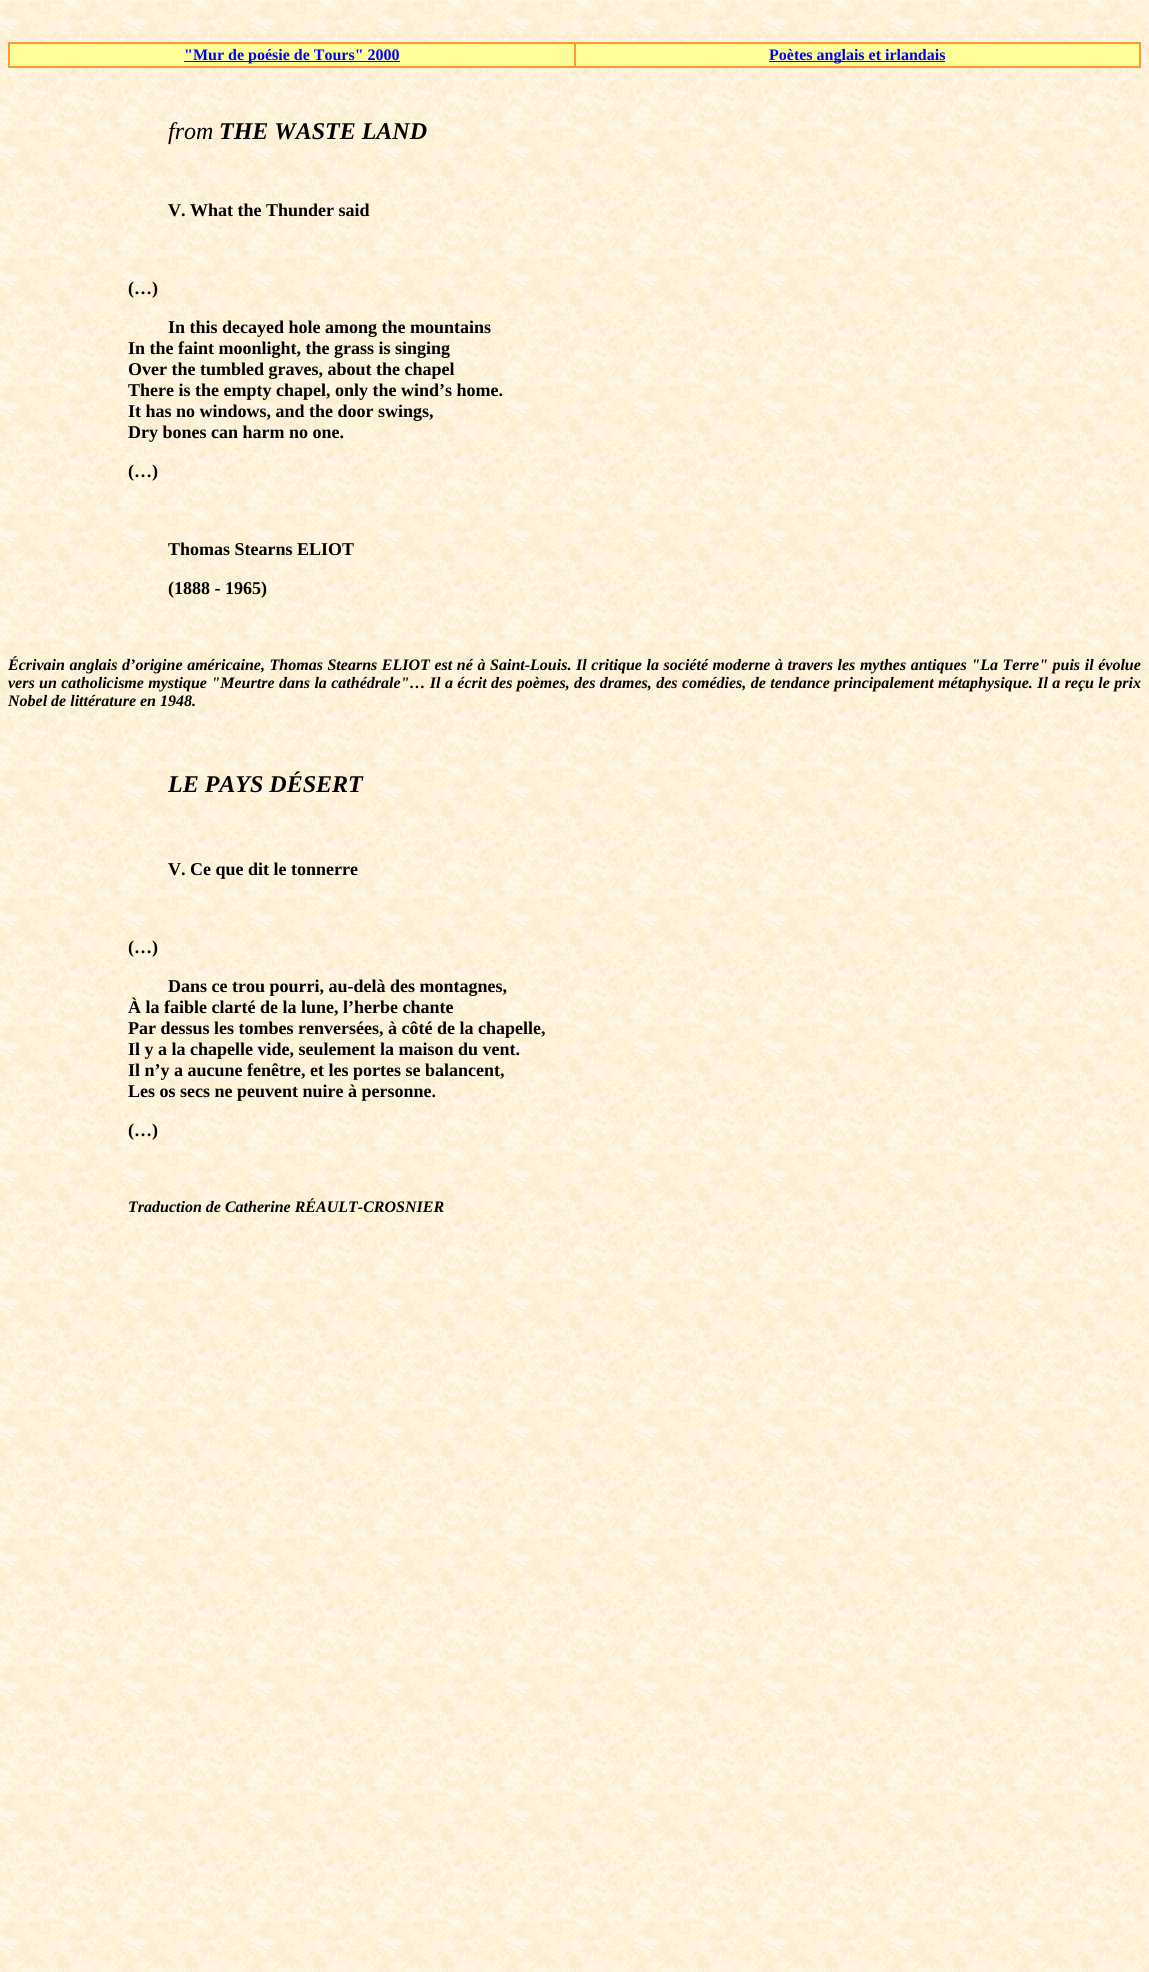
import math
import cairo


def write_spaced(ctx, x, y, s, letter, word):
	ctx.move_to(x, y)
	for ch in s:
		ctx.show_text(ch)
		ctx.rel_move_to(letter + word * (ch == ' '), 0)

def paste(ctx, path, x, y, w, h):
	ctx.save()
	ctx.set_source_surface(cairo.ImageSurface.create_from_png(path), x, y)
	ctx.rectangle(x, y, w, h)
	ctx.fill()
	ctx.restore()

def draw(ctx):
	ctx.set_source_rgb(1, 1, 1)
	ctx.paint()
	paste(ctx, 'media/1.png', 0, 0, 1149, 1972)
	ctx.set_source_rgb(1, 1, 0.6)
	ctx.rectangle(10, 44, 1129, 22)
	ctx.fill()
	ctx.rectangle(8.5, 42.5, 1132, 25)
	ctx.set_source_rgb(1, 0.6, 0.2)
	ctx.set_line_width(1)
	ctx.stroke()
	ctx.rectangle(9.5, 43.5, 565, 23)
	ctx.stroke()
	ctx.set_source_rgb(0, 0, 1)
	ctx.rectangle(184, 61, 216, 1)
	ctx.fill()
	ctx.select_font_face('Liberation Serif', cairo.FONT_SLANT_NORMAL, cairo.FONT_WEIGHT_BOLD)
	ctx.set_font_size(16)
	ctx.move_to(184, 60)
	ctx.show_text('"Mur de poésie de Tours" 2000')
	ctx.rectangle(575.5, 43.5, 564, 23)
	ctx.set_source_rgb(1, 0.6, 0.2)
	ctx.stroke()
	ctx.set_source_rgb(0, 0, 1)
	ctx.rectangle(769, 61, 176, 1)
	ctx.fill()
	ctx.move_to(769, 60)
	ctx.show_text('Poètes anglais et irlandais')
	ctx.select_font_face('Liberation Serif', cairo.FONT_SLANT_ITALIC)
	ctx.set_font_size(24)
	ctx.set_source_rgb(0, 0, 0)
	ctx.move_to(168, 139)
	ctx.show_text('from')
	ctx.select_font_face('Liberation Serif', cairo.FONT_SLANT_ITALIC, cairo.FONT_WEIGHT_BOLD)
	ctx.move_to(219, 139)
	ctx.show_text('THE WASTE LAND')
	ctx.select_font_face('Liberation Serif', cairo.FONT_SLANT_NORMAL, cairo.FONT_WEIGHT_BOLD)
	ctx.set_font_size(18)
	for x, y, s in [
		(168, 216, 'V. What the Thunder said'),
		(128, 294, '(…)'),
		(168, 333, 'In this decayed hole among the mountains'),
		(128, 354, 'In the faint moonlight, the grass is singing'),
		(128, 375, 'Over the tumbled graves, about the chapel'),
		(128, 396, 'There is the empty chapel, only the wind’s home.'),
		(128, 417, 'It has no windows, and the door swings,'),
		(128, 438, 'Dry bones can harm no one.'),
		(128, 477, '(…)'),
		(168, 555, 'Thomas Stearns ELIOT'),
		(168, 594, '(1888 - 1965)'),
	]:
		ctx.move_to(x, y)
		ctx.show_text(s)
	ctx.select_font_face('Liberation Serif', cairo.FONT_SLANT_ITALIC, cairo.FONT_WEIGHT_BOLD)
	ctx.set_font_size(16)
	write_spaced(ctx, 8, 670, 'Écrivain anglais d’origine américaine, Thomas Stearns ELIOT est né à Saint-Louis. Il critique la société moderne à travers les mythes antiques "La Terre" puis il évolue', 0, 0.6)
	write_spaced(ctx, 8, 688, 'vers un catholicisme mystique "Meurtre dans la cathédrale"… Il a écrit des poèmes, des drames, des comédies, de tendance principalement métaphysique. Il a reçu le prix', 0, 0.4)
	ctx.move_to(8, 706)
	ctx.show_text('Nobel de littérature en 1948.')
	ctx.set_font_size(24)
	ctx.move_to(168, 792)
	ctx.show_text('LE PAYS DÉSERT')
	ctx.select_font_face('Liberation Serif', cairo.FONT_SLANT_NORMAL, cairo.FONT_WEIGHT_BOLD)
	ctx.set_font_size(18)
	for x, y, s in [
		(168, 875, 'V. Ce que dit le tonnerre'),
		(128, 953, '(…)'),
		(168, 992, 'Dans ce trou pourri, au-delà des montagnes,'),
		(128, 1013, 'À la faible clarté de la lune, l’herbe chante'),
		(128, 1034, 'Par dessus les tombes renversées, à côté de la chapelle,'),
		(128, 1055, 'Il y a la chapelle vide, seulement la maison du vent.'),
		(128, 1076, 'Il n’y a aucune fenêtre, et les portes se balancent,'),
		(128, 1097, 'Les os secs ne peuvent nuire à personne.'),
		(128, 1136, '(…)'),
	]:
		ctx.move_to(x, y)
		ctx.show_text(s)
	ctx.select_font_face('Liberation Serif', cairo.FONT_SLANT_ITALIC, cairo.FONT_WEIGHT_BOLD)
	ctx.set_font_size(16)
	ctx.move_to(128, 1212)
	ctx.show_text('Traduction de Catherine RÉAULT-CROSNIER')


surface = cairo.ImageSurface(cairo.FORMAT_RGB24, 1149, 1972)
ctx = cairo.Context(surface)
options = cairo.FontOptions()
options.set_hint_metrics(cairo.HINT_METRICS_OFF)
options.set_hint_style(cairo.HINT_STYLE_NONE)
ctx.set_font_options(options)
ctx.set_miter_limit(4)
draw(ctx)
surface.write_to_png('image.png')
